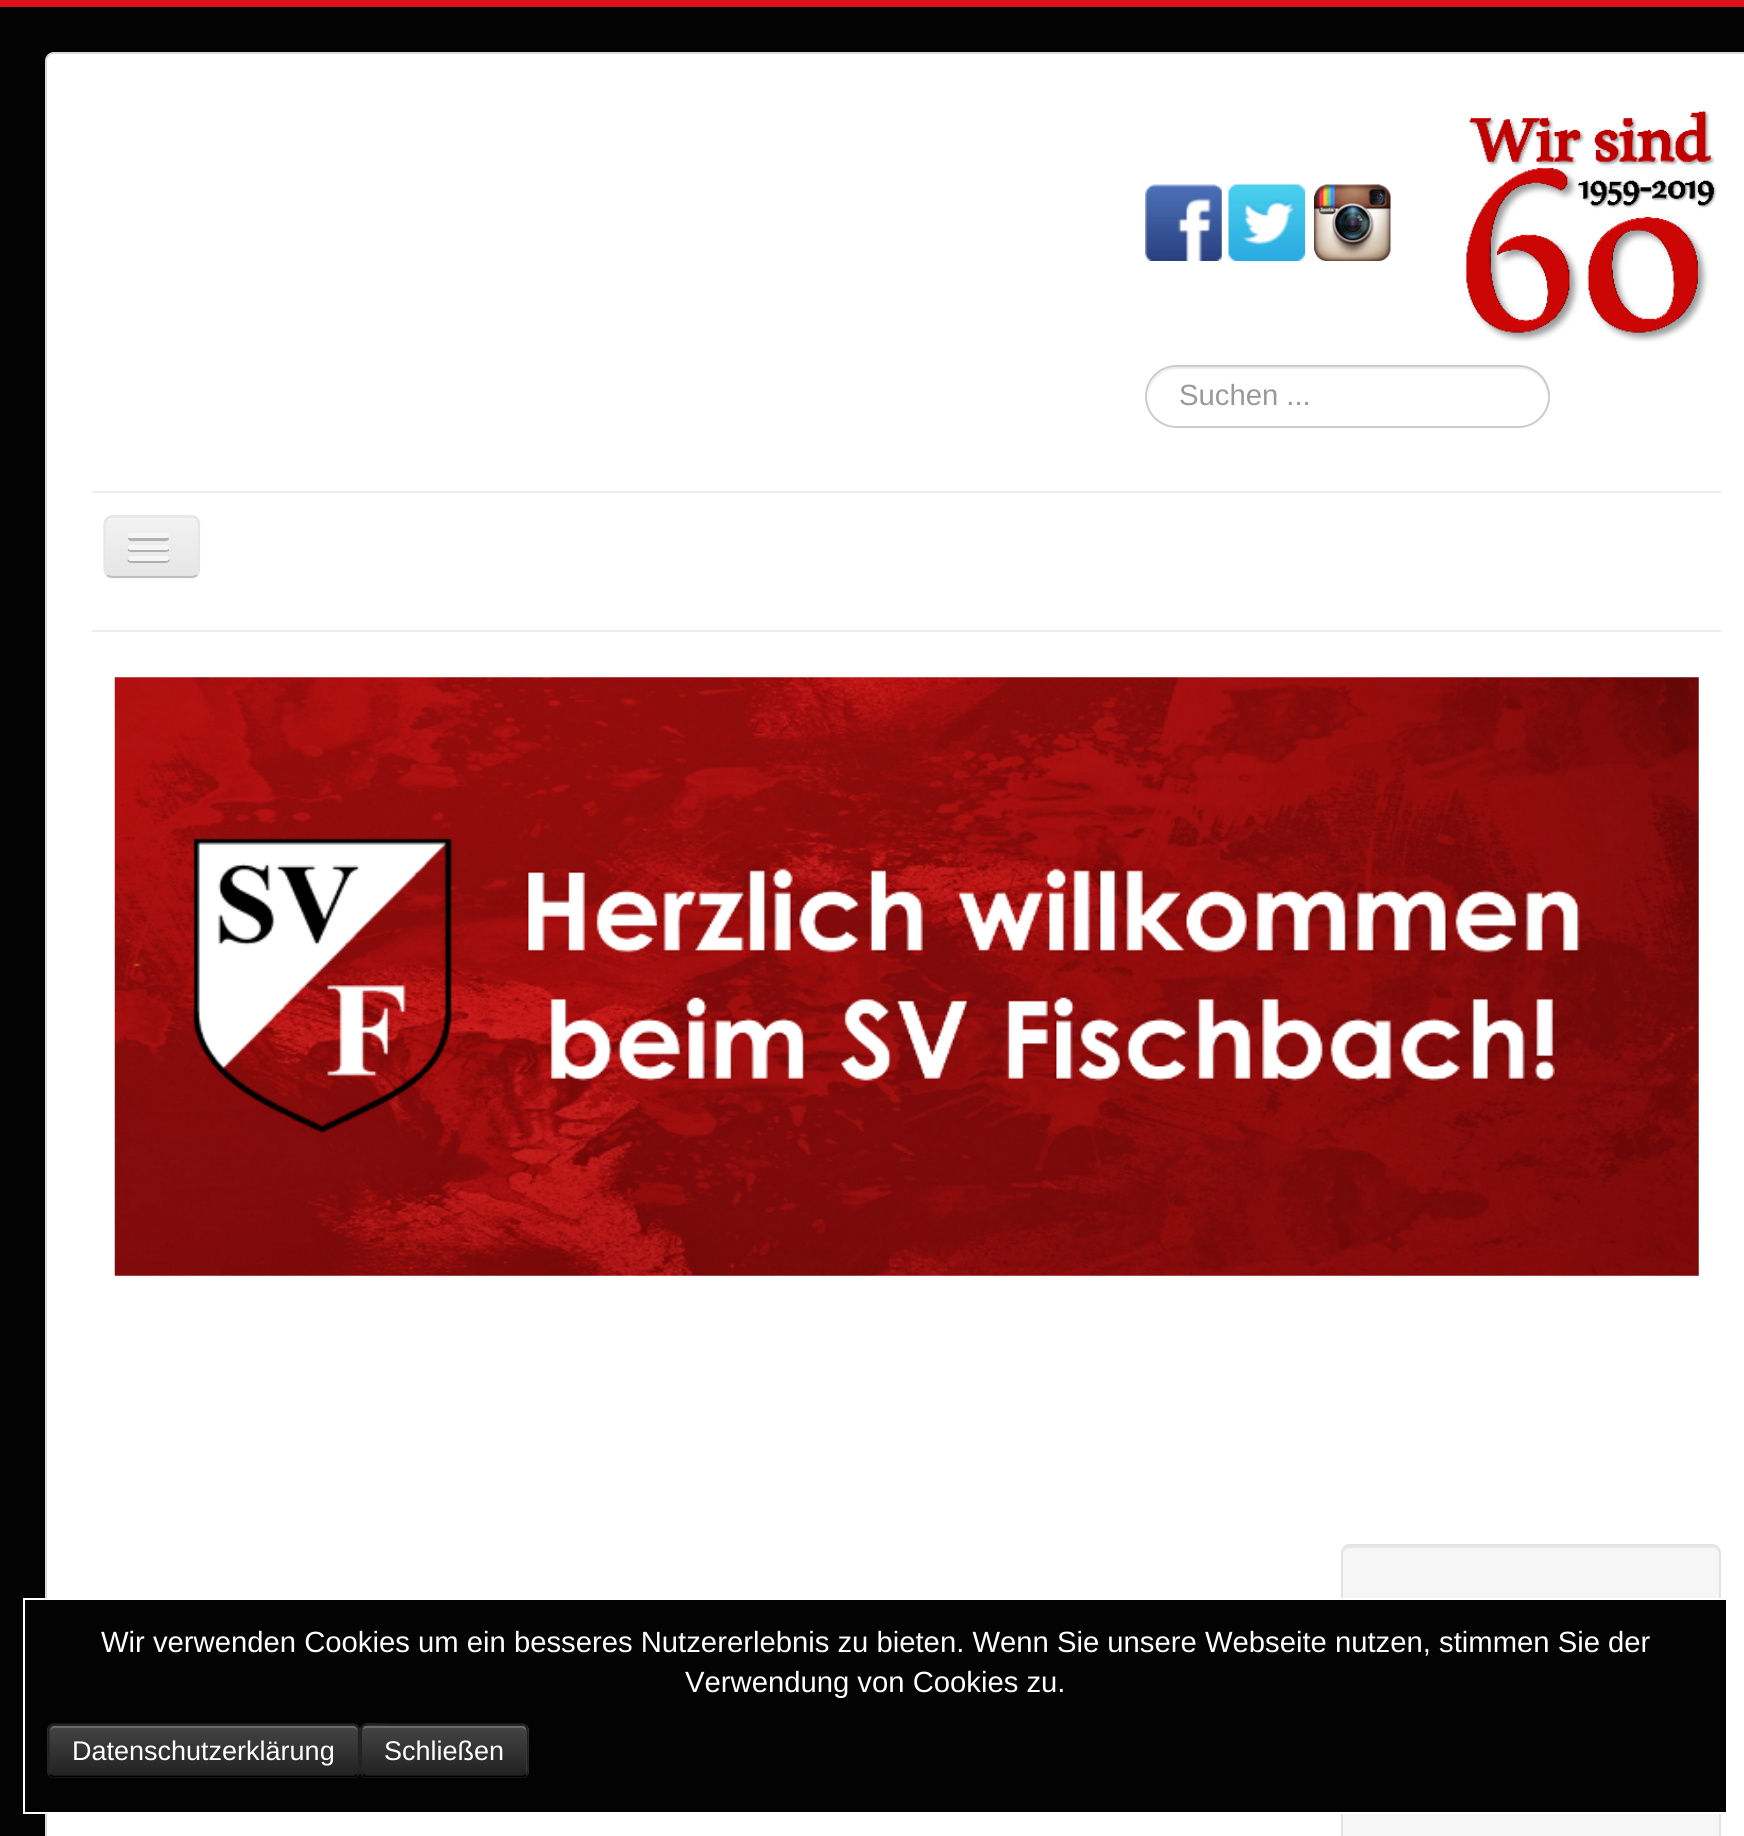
import math
import cairo


def round_path(ctx, x, y, w, h, r):
	ctx.new_sub_path()
	for i, (u, v) in enumerate([(x + w - r, y + h - r), (x + r, y + h - r), (x + r, y + r), (x + w - r, y + r)]):
		ctx.arc(u, v, r, i * math.pi / 2, (i + 1) * math.pi / 2)
	ctx.close_path()

def paste(ctx, path, x, y, w, h):
	ctx.save()
	ctx.set_source_surface(cairo.ImageSurface.create_from_png(path), x, y)
	ctx.rectangle(x, y, w, h)
	ctx.fill()
	ctx.restore()

def draw(ctx):
	ctx.set_source_rgb(0.012, 0.012, 0.012)
	ctx.paint()
	ctx.set_source_rgb(0.871, 0.063, 0.102)
	ctx.rectangle(0, 0, 1744, 7)
	ctx.fill()
	ctx.set_source_rgb(1, 1, 1)
	round_path(ctx, 45, 52, 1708, 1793, 9)
	ctx.fill()
	round_path(ctx, 46, 53, 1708, 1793, 8)
	ctx.set_source_rgba(0, 0, 0, 0.15)
	ctx.stroke()
	paste(ctx, 'media/1.png', 1145, 184, 77, 77)
	paste(ctx, 'media/2.png', 1228, 184, 77, 77)
	paste(ctx, 'media/3.png', 1314, 184, 77, 77)
	paste(ctx, 'media/4.png', 1465, 110, 252, 232)
	ctx.set_source_rgb(0.925, 0.925, 0.925)
	ctx.new_path()
	ctx.move_to(1177, 369)
	ctx.line_to(1519, 369)
	ctx.curve_to(1535, 369, 1547, 381, 1548, 397)
	ctx.line_to(1548, 396)
	ctx.curve_to(1548, 380, 1535, 367, 1519, 367)
	ctx.line_to(1177, 367)
	ctx.curve_to(1161, 367, 1148, 380, 1148, 396)
	ctx.line_to(1148, 397)
	ctx.curve_to(1149, 381, 1161, 369, 1177, 369)
	ctx.close_path()
	ctx.fill()
	round_path(ctx, 1146, 366, 403, 61, 30.5)
	ctx.set_source_rgb(0.8, 0.8, 0.8)
	ctx.stroke()
	ctx.select_font_face('Liberation Sans')
	ctx.set_font_size(29.25)
	ctx.set_source_rgb(0.6, 0.6, 0.6)
	ctx.move_to(1179, 405)
	ctx.show_text('Suchen ...')
	ctx.set_source_rgb(0.925, 0.925, 0.925)
	ctx.rectangle(92, 491, 1629, 2)
	ctx.fill()
	ctx.rectangle(92, 630, 1629, 2)
	ctx.fill()
	ctx.set_source_rgb(0.929, 0.929, 0.929)
	round_path(ctx, 104, 515, 96, 63, 9)
	ctx.fill()
	ctx.save()
	round_path(ctx, 104, 515, 96, 63, 9)
	ctx.clip()
	gradient = cairo.LinearGradient(152, 518, 152, 576)
	gradient.add_color_stop_rgba(0, 0.949, 0.949, 0.949, 1)
	gradient.add_color_stop_rgba(1, 0.902, 0.902, 0.902, 1)
	ctx.set_source(gradient)
	ctx.rectangle(104, 518, 96, 58)
	ctx.fill()
	ctx.restore()
	ctx.new_path()
	ctx.move_to(197, 575)
	ctx.curve_to(195.5, 576.5, 193.5, 577, 191, 577)
	ctx.line_to(112.5, 577)
	ctx.curve_to(110.5, 577, 108.5, 576.5, 107, 575)
	ctx.set_source_rgb(0.749, 0.749, 0.749)
	ctx.set_line_width(2.2)
	ctx.stroke()
	ctx.new_path()
	ctx.move_to(107, 575)
	ctx.curve_to(105.5, 573.5, 104.5, 571.5, 104.5, 569)
	ctx.line_to(104.5, 524)
	ctx.curve_to(104.5, 522, 105.5, 520, 107, 518.5)
	ctx.curve_to(108.5, 517, 110.5, 516.5, 112.5, 516.5)
	ctx.line_to(191, 516.5)
	ctx.curve_to(193.5, 516.5, 195.5, 517, 197, 518.5)
	ctx.curve_to(198.5, 520, 199, 522, 199, 524)
	ctx.line_to(199, 569)
	ctx.curve_to(199, 571.5, 198.5, 573.5, 197, 575)
	ctx.set_source_rgb(0.902, 0.902, 0.902)
	ctx.stroke()
	ctx.set_source_rgb(0.698, 0.698, 0.698)
	ctx.new_path()
	ctx.move_to(129, 537)
	ctx.line_to(128, 539)
	ctx.curve_to(129, 542, 135, 541, 136, 541)
	ctx.line_to(160, 541)
	ctx.curve_to(162, 541, 168, 542, 169, 539)
	ctx.line_to(168, 537)
	ctx.line_to(167, 538)
	ctx.line_to(130, 538)
	ctx.close_path()
	ctx.fill()
	ctx.set_source_rgb(0.961, 0.961, 0.961)
	round_path(ctx, 128, 533, 41, 5, 2.5)
	ctx.fill()
	ctx.set_source_rgb(0.69, 0.69, 0.69)
	ctx.new_path()
	ctx.move_to(129, 548)
	ctx.curve_to(124, 553, 136, 552, 136, 552)
	ctx.line_to(160, 552)
	ctx.curve_to(161, 552, 173, 553, 168, 548)
	ctx.line_to(167, 549)
	ctx.line_to(130, 549)
	ctx.close_path()
	ctx.fill()
	ctx.set_source_rgb(0.961, 0.961, 0.961)
	round_path(ctx, 128, 545, 41, 5, 2.5)
	ctx.fill()
	ctx.set_source_rgb(0.686, 0.686, 0.686)
	ctx.new_path()
	ctx.move_to(128, 559)
	ctx.curve_to(125, 564, 136, 563, 136, 563)
	ctx.line_to(160, 563)
	ctx.curve_to(161, 563, 172, 564, 169, 559)
	ctx.curve_to(168, 560, 167, 560, 166, 560)
	ctx.line_to(130, 560)
	ctx.curve_to(130, 560, 129, 560, 128, 559)
	ctx.close_path()
	ctx.fill()
	ctx.set_source_rgb(0.961, 0.961, 0.961)
	round_path(ctx, 128, 556, 41, 5, 2.5)
	ctx.fill()
	paste(ctx, 'media/5.png', 114, 677, 1585, 599)
	round_path(ctx, 1341, 1544, 380, 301, 9)
	ctx.fill()
	ctx.set_source_rgb(0.914, 0.914, 0.914)
	ctx.new_path()
	ctx.move_to(1350, 1548)
	ctx.line_to(1712, 1548)
	ctx.curve_to(1716, 1548, 1719, 1551, 1719, 1555)
	ctx.line_to(1719, 1553)
	ctx.curve_to(1719, 1549, 1716, 1546, 1712, 1546)
	ctx.line_to(1350, 1546)
	ctx.curve_to(1346, 1546, 1343, 1549, 1343, 1553)
	ctx.line_to(1343, 1555)
	ctx.curve_to(1343, 1551, 1346, 1548, 1350, 1548)
	ctx.close_path()
	ctx.fill()
	round_path(ctx, 1342, 1545, 378, 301, 8)
	ctx.set_source_rgb(0.89, 0.89, 0.89)
	ctx.set_line_width(2)
	ctx.stroke()
	ctx.set_source_rgb(0.012, 0.012, 0.012)
	ctx.rectangle(45, 1600, 1681, 212)
	ctx.fill()
	ctx.rectangle(24, 1599, 1703, 214)
	ctx.set_source_rgb(1, 1, 1)
	ctx.stroke()
	ctx.move_to(101, 1652)
	ctx.show_text('Wir verwenden Cookies um ein besseres Nutzererlebnis zu bieten. Wenn Sie unsere Webseite nutzen, stimmen Sie der')
	ctx.move_to(685, 1692)
	ctx.show_text('Verwendung von Cookies zu.')
	ctx.set_source_rgb(0.212, 0.212, 0.212)
	round_path(ctx, 47, 1724, 313, 54, 7)
	ctx.fill()
	ctx.save()
	round_path(ctx, 47, 1724, 313, 54, 7)
	ctx.clip()
	gradient = cairo.LinearGradient(204, 1726, 204, 1775)
	gradient.add_color_stop_rgba(0, 0.267, 0.267, 0.267, 1)
	gradient.add_color_stop_rgba(1, 0.133, 0.133, 0.133, 1)
	ctx.set_source(gradient)
	ctx.rectangle(47, 1726, 313, 49)
	ctx.fill()
	ctx.restore()
	ctx.set_source_rgb(0.412, 0.412, 0.412)
	ctx.new_path()
	ctx.move_to(54, 1728)
	ctx.line_to(353, 1728)
	ctx.curve_to(356, 1728, 358, 1730, 358, 1732)
	ctx.curve_to(358, 1729, 356, 1726, 353, 1726)
	ctx.line_to(55, 1726)
	ctx.curve_to(52, 1726, 50, 1729, 50, 1732)
	ctx.curve_to(50, 1730, 52, 1728, 54, 1728)
	ctx.close_path()
	ctx.fill()
	ctx.new_path()
	ctx.move_to(357, 1774.5)
	ctx.curve_to(356, 1776, 354.5, 1776.5, 353, 1776.5)
	ctx.line_to(54, 1776.5)
	ctx.curve_to(52.5, 1776.5, 51, 1776, 50, 1774.5)
	ctx.set_source_rgb(0, 0, 0)
	ctx.set_line_width(2.2)
	ctx.stroke()
	ctx.new_path()
	ctx.move_to(50, 1774.5)
	ctx.curve_to(49, 1773.5, 48.5, 1772, 48.5, 1771)
	ctx.line_to(48.5, 1730)
	ctx.curve_to(48.5, 1729, 49, 1727.5, 50, 1726.5)
	ctx.curve_to(51, 1725, 52.5, 1724.5, 54, 1724.5)
	ctx.line_to(353, 1724.5)
	ctx.curve_to(354.5, 1724.5, 356, 1725, 357, 1726.5)
	ctx.curve_to(358.5, 1727.5, 359, 1729, 359, 1730)
	ctx.line_to(359, 1771)
	ctx.curve_to(359, 1772, 358.5, 1773.5, 357, 1774.5)
	ctx.set_source_rgb(0.133, 0.133, 0.133)
	ctx.stroke()
	ctx.set_font_size(27)
	ctx.set_source_rgb(1, 1, 1)
	ctx.move_to(72, 1760)
	ctx.show_text('Datenschutzerklärung')
	ctx.set_source_rgb(0.212, 0.212, 0.212)
	round_path(ctx, 360, 1724, 169, 54, 7)
	ctx.fill()
	ctx.save()
	round_path(ctx, 360, 1724, 169, 54, 7)
	ctx.clip()
	gradient = cairo.LinearGradient(444, 1726, 444, 1775)
	gradient.add_color_stop_rgba(0, 0.267, 0.267, 0.267, 1)
	gradient.add_color_stop_rgba(1, 0.133, 0.133, 0.133, 1)
	ctx.set_source(gradient)
	ctx.rectangle(360, 1726, 169, 49)
	ctx.fill()
	ctx.restore()
	ctx.set_source_rgba(1, 1, 1, 0.2)
	ctx.new_path()
	ctx.move_to(367, 1728)
	ctx.line_to(522, 1728)
	ctx.curve_to(524, 1728, 526, 1730, 526, 1732)
	ctx.line_to(526, 1773)
	ctx.curve_to(527, 1772, 527, 1771, 527, 1770)
	ctx.line_to(527, 1731)
	ctx.curve_to(527, 1728, 525, 1726, 522, 1726)
	ctx.line_to(367, 1726)
	ctx.curve_to(364, 1726, 362, 1728, 362, 1731)
	ctx.line_to(362, 1732)
	ctx.curve_to(362, 1730, 364, 1728, 367, 1728)
	ctx.close_path()
	ctx.fill()
	ctx.new_path()
	ctx.move_to(526, 1774.5)
	ctx.curve_to(525, 1776, 523.5, 1776.5, 522, 1776.5)
	ctx.line_to(367, 1776.5)
	ctx.curve_to(365.5, 1776.5, 364, 1776, 363, 1774.5)
	ctx.set_source_rgb(0, 0, 0)
	ctx.stroke()
	ctx.new_path()
	ctx.move_to(363, 1774.5)
	ctx.curve_to(360, 1772, 361, 1767, 361, 1764)
	ctx.line_to(361, 1750.5)
	ctx.curve_to(361, 1718.5, 357, 1724.5, 392.5, 1724.5)
	ctx.line_to(522, 1724.5)
	ctx.curve_to(528.5, 1724.5, 527.5, 1732.5, 527.5, 1737)
	ctx.line_to(527.5, 1764)
	ctx.curve_to(527.5, 1767, 528.5, 1772, 526, 1774.5)
	ctx.set_source_rgb(0.133, 0.133, 0.133)
	ctx.stroke()
	ctx.set_source_rgb(1, 1, 1)
	ctx.move_to(384, 1760)
	ctx.show_text('Schließen')


surface = cairo.ImageSurface(cairo.FORMAT_RGB24, 1744, 1836)
ctx = cairo.Context(surface)
options = cairo.FontOptions()
options.set_hint_metrics(cairo.HINT_METRICS_OFF)
options.set_hint_style(cairo.HINT_STYLE_NONE)
ctx.set_font_options(options)
ctx.set_miter_limit(4)
draw(ctx)
surface.write_to_png('image.png')
